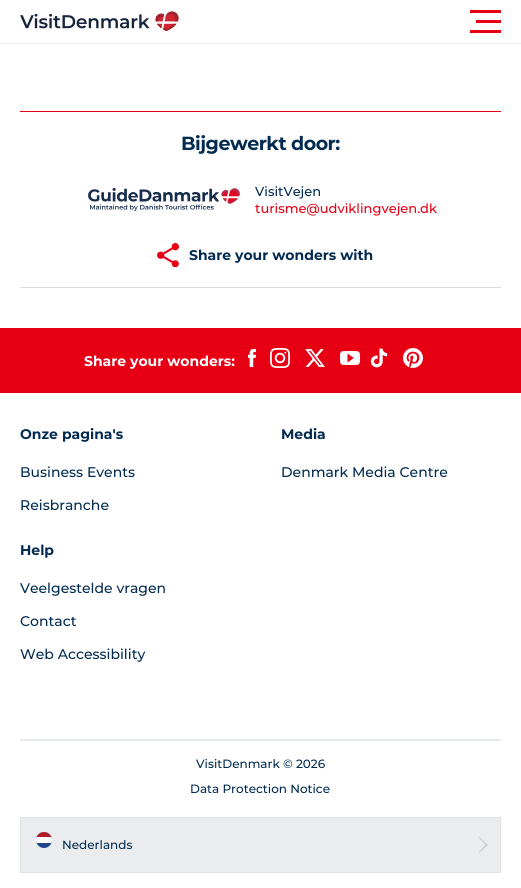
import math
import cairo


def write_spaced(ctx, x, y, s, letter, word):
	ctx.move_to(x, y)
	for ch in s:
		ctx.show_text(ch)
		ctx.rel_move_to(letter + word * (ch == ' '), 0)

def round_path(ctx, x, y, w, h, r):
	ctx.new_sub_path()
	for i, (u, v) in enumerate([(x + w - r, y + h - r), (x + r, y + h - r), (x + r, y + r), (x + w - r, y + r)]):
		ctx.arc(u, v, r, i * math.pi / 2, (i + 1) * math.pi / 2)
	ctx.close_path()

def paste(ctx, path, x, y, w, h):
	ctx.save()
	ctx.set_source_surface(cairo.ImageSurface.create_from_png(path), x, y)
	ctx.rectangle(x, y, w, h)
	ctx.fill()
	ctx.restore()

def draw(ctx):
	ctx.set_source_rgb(1, 1, 1)
	ctx.paint()
	ctx.set_source_rgb(0.941, 0.945, 0.953)
	ctx.rectangle(0, 43, 521, 1)
	ctx.fill()
	paste(ctx, 'media/1.png', 20, 11, 159, 20)
	ctx.set_source_rgb(0.906, 0, 0.075)
	ctx.rectangle(470, 10, 31, 3)
	ctx.rectangle(476, 20, 25, 3)
	ctx.rectangle(470, 30, 31, 3)
	ctx.rectangle(20, 111, 481, 1)
	ctx.fill()
	ctx.set_source_rgb(0.871, 0.863, 0.855)
	ctx.rectangle(20, 287, 481, 1)
	ctx.fill()
	ctx.select_font_face('Montserrat', cairo.FONT_SLANT_NORMAL, cairo.FONT_WEIGHT_BOLD)
	ctx.set_font_size(19)
	ctx.set_source_rgb(0.008, 0.169, 0.322)
	write_spaced(ctx, 181, 150, 'Bijgewerkt door:', -0.5, 0)
	paste(ctx, 'media/2.png', 88, 188, 152, 23)
	ctx.select_font_face('Montserrat Medium')
	ctx.set_font_size(13)
	ctx.move_to(255, 196)
	ctx.show_text('VisitVejen')
	ctx.set_source_rgb(0.906, 0, 0.075)
	ctx.move_to(255, 213)
	ctx.show_text('turisme@udviklingvejen.dk')
	paste(ctx, 'media/3.png', 157, 243, 22, 24)
	ctx.select_font_face('Montserrat', cairo.FONT_SLANT_NORMAL, cairo.FONT_WEIGHT_BOLD)
	ctx.set_font_size(14)
	ctx.set_source_rgb(0.008, 0.169, 0.322)
	ctx.move_to(189, 260)
	ctx.show_text('Share your wonders with')
	ctx.set_source_rgb(0.906, 0, 0.075)
	ctx.rectangle(0, 328, 521, 65)
	ctx.fill()
	ctx.set_source_rgb(1, 1, 1)
	ctx.move_to(84, 366)
	ctx.show_text('Share your wonders:')
	paste(ctx, 'media/4.png', 248, 349, 8, 18)
	paste(ctx, 'media/5.png', 270, 348, 20, 20)
	paste(ctx, 'media/6.png', 305, 349, 20, 18)
	paste(ctx, 'media/7.png', 340, 351, 20, 14)
	paste(ctx, 'media/8.png', 370, 348, 18, 20)
	paste(ctx, 'media/9.png', 403, 348, 20, 20)
	ctx.set_source_rgb(0.008, 0.169, 0.322)
	ctx.move_to(20, 439)
	ctx.show_text('Onze pagina\'s')
	ctx.select_font_face('Montserrat Medium')
	ctx.move_to(20, 477)
	ctx.show_text('Business Events')
	ctx.move_to(20, 510)
	ctx.show_text('Reisbranche')
	ctx.select_font_face('Montserrat', cairo.FONT_SLANT_NORMAL, cairo.FONT_WEIGHT_BOLD)
	ctx.move_to(281, 439)
	ctx.show_text('Media')
	ctx.select_font_face('Montserrat Medium')
	ctx.move_to(281, 477)
	ctx.show_text('Denmark Media Centre')
	ctx.select_font_face('Montserrat', cairo.FONT_SLANT_NORMAL, cairo.FONT_WEIGHT_BOLD)
	ctx.move_to(20, 555)
	ctx.show_text('Help')
	ctx.select_font_face('Montserrat Medium')
	for x, y, s in [
		(20, 593, 'Veelgestelde vragen'),
		(20, 626, 'Contact'),
		(20, 659, 'Web Accessibility'),
	]:
		ctx.move_to(x, y)
		ctx.show_text(s)
	ctx.set_source_rgb(0.906, 0.918, 0.925)
	ctx.rectangle(20, 739, 481, 2)
	ctx.fill()
	ctx.set_font_size(12)
	ctx.set_source_rgb(0.008, 0.169, 0.322)
	ctx.move_to(196, 768)
	ctx.show_text('VisitDenmark © 2026')
	ctx.move_to(190, 793)
	ctx.show_text('Data Protection Notice')
	ctx.set_source_rgb(0.918, 0.925, 0.933)
	ctx.rectangle(20.5, 817.5, 480, 55)
	ctx.fill_preserve()
	ctx.set_source_rgb(0.882, 0.886, 0.89)
	ctx.set_line_width(1)
	ctx.stroke()
	ctx.set_source_rgb(0.129, 0.275, 0.545)
	ctx.arc(44, 840, 8, 0, 2 * math.pi)
	ctx.fill()
	ctx.save()
	round_path(ctx, 36, 832, 16, 16, 8)
	ctx.clip()
	ctx.set_source_rgb(1, 1, 1)
	ctx.new_path()
	ctx.move_to(44, 832)
	ctx.curve_to(48.5, 832, 52, 835.5, 52, 840)
	ctx.line_to(52, 843)
	ctx.line_to(36, 843)
	ctx.line_to(36, 840)
	ctx.curve_to(36, 835.5, 39.5, 832, 44, 832)
	ctx.close_path()
	ctx.fill()
	ctx.set_source_rgb(0.682, 0.11, 0.157)
	ctx.rectangle(36, 832, 16, 5)
	ctx.fill()
	ctx.restore()
	ctx.set_source_rgb(0.008, 0.169, 0.322)
	ctx.move_to(62, 849)
	ctx.show_text('Nederlands')
	ctx.set_source_rgb(0.757, 0.769, 0.78)
	ctx.new_path()
	ctx.move_to(479.5, 837)
	ctx.line_to(487.5, 845)
	ctx.line_to(486.5, 845.5)
	ctx.line_to(479, 837.5)
	ctx.close_path()
	ctx.fill()
	ctx.new_path()
	ctx.move_to(486.5, 844)
	ctx.line_to(487.5, 845)
	ctx.line_to(479.5, 852.5)
	ctx.line_to(479, 852)
	ctx.close_path()
	ctx.fill()


surface = cairo.ImageSurface(cairo.FORMAT_RGB24, 521, 888)
ctx = cairo.Context(surface)
options = cairo.FontOptions()
options.set_hint_metrics(cairo.HINT_METRICS_OFF)
options.set_hint_style(cairo.HINT_STYLE_NONE)
ctx.set_font_options(options)
ctx.set_miter_limit(4)
draw(ctx)
surface.write_to_png('image.png')
